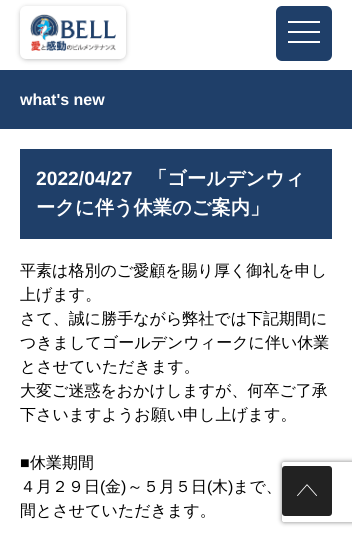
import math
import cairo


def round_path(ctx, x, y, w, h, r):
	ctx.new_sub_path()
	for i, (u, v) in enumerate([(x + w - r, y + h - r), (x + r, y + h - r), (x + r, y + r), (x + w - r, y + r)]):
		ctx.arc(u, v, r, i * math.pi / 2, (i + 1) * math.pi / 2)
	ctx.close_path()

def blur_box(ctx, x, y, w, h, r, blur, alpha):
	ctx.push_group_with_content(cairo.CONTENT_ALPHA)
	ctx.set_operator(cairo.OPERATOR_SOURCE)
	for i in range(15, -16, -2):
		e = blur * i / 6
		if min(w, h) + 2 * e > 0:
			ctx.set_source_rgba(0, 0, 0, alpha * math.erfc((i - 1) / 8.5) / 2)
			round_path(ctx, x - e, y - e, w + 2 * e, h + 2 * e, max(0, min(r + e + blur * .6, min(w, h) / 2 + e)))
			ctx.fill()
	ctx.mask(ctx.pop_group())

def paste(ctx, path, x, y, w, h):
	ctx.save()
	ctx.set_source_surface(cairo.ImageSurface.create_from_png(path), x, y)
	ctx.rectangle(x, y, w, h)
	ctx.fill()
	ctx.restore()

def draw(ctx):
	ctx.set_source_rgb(1, 1, 1)
	ctx.paint()
	ctx.set_source_rgb(0.533, 0.533, 0.533)
	blur_box(ctx, 22, 9, 102, 49, 4, 3, 1)
	ctx.set_source_rgb(1, 1, 1)
	round_path(ctx, 20, 6, 106, 53, 6)
	ctx.fill()
	paste(ctx, 'media/1.png', 30, 14, 86, 37)
	ctx.set_source_rgb(0.122, 0.247, 0.412)
	round_path(ctx, 276, 6, 56, 55, 6)
	ctx.fill()
	ctx.set_source_rgb(1, 1, 1)
	ctx.rectangle(288, 31, 32, 2)
	ctx.rectangle(288, 21, 32, 2)
	ctx.rectangle(288, 41, 32, 2)
	ctx.fill()
	ctx.save()
	ctx.set_fill_rule(cairo.FILL_RULE_EVEN_ODD)
	ctx.new_path()
	ctx.move_to(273, 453)
	ctx.line_to(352, 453)
	ctx.line_to(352, 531)
	ctx.line_to(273, 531)
	ctx.close_path()
	ctx.move_to(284, 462)
	ctx.line_to(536, 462)
	ctx.curve_to(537, 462, 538, 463, 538, 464)
	ctx.line_to(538, 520)
	ctx.curve_to(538, 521, 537, 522, 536, 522)
	ctx.line_to(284, 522)
	ctx.curve_to(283, 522, 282, 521, 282, 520)
	ctx.line_to(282, 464)
	ctx.curve_to(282, 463, 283, 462, 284, 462)
	ctx.close_path()
	ctx.clip()
	ctx.set_source_rgb(0.502, 0.502, 0.502)
	blur_box(ctx, 282, 462, 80, 60, 2, 2.5, 1)
	ctx.restore()
	ctx.set_source_rgb(0.133, 0.133, 0.133)
	round_path(ctx, 282, 466, 50, 50, 3)
	ctx.fill()
	paste(ctx, 'media/2.png', 297, 484, 20, 12)
	ctx.set_source_rgb(0.122, 0.247, 0.412)
	ctx.rectangle(0, 70, 352, 59)
	ctx.fill()
	ctx.select_font_face('Liberation Sans', cairo.FONT_SLANT_NORMAL, cairo.FONT_WEIGHT_BOLD)
	ctx.set_font_size(16)
	ctx.set_source_rgb(1, 1, 1)
	ctx.move_to(20, 105)
	ctx.show_text('what\'s new')
	ctx.set_source_rgb(0.122, 0.247, 0.412)
	ctx.rectangle(20, 149, 312, 90)
	ctx.fill()
	ctx.set_font_size(19.25)
	ctx.set_source_rgb(1, 1, 1)
	ctx.move_to(36, 185)
	ctx.show_text('2022/04/27')
	ctx.select_font_face('WenQuanYi Zen Hei', cairo.FONT_SLANT_NORMAL, cairo.FONT_WEIGHT_BOLD)
	ctx.move_to(148, 185)
	ctx.show_text('「ゴールデンウィ')
	ctx.move_to(36, 214)
	ctx.show_text('ークに伴う休業のご案内」')
	ctx.select_font_face('WenQuanYi Zen Hei Medium')
	ctx.set_font_size(16)
	ctx.set_source_rgb(0, 0, 0)
	for x, y, s in [
		(20, 276, '平素は格別のご愛顧を賜り厚く御礼を申し'),
		(20, 300, '上げます。'),
		(20, 324, 'さて、誠に勝手ながら弊社では下記期間に'),
		(20, 348, 'つきましてゴールデンウィークに伴い休業'),
		(20, 372, 'とさせていただきます。'),
		(20, 396, '大変ご迷惑をおかけしますが、何卒ご了承'),
		(20, 420, '下さいますようお願い申し上げます。'),
	]:
		ctx.move_to(x, y)
		ctx.show_text(s)
	ctx.select_font_face('Liberation Sans')
	ctx.move_to(20, 468)
	ctx.show_text('■')
	ctx.select_font_face('WenQuanYi Zen Hei Medium')
	ctx.move_to(30, 468)
	ctx.show_text('休業期間')
	ctx.move_to(20, 492)
	ctx.show_text('４月２９日')
	ctx.select_font_face('Liberation Sans')
	ctx.move_to(100, 492)
	ctx.show_text('(')
	ctx.select_font_face('WenQuanYi Zen Hei Medium')
	ctx.move_to(105, 492)
	ctx.show_text('金')
	ctx.select_font_face('Liberation Sans')
	ctx.move_to(121, 492)
	ctx.show_text(')')
	ctx.select_font_face('WenQuanYi Zen Hei Medium')
	ctx.move_to(127, 492)
	ctx.show_text('～５月５日')
	ctx.select_font_face('Liberation Sans')
	ctx.move_to(207, 492)
	ctx.show_text('(')
	ctx.select_font_face('WenQuanYi Zen Hei Medium')
	ctx.move_to(212, 492)
	ctx.show_text('木')
	ctx.select_font_face('Liberation Sans')
	ctx.move_to(228, 492)
	ctx.show_text(')')
	ctx.select_font_face('WenQuanYi Zen Hei Medium')
	ctx.move_to(233, 492)
	ctx.show_text('まで、')
	ctx.move_to(20, 516)
	ctx.show_text('間とさせていただきます。')


surface = cairo.ImageSurface(cairo.FORMAT_RGB24, 352, 536)
ctx = cairo.Context(surface)
options = cairo.FontOptions()
options.set_hint_metrics(cairo.HINT_METRICS_OFF)
options.set_hint_style(cairo.HINT_STYLE_NONE)
ctx.set_font_options(options)
ctx.set_miter_limit(4)
draw(ctx)
surface.write_to_png('image.png')
